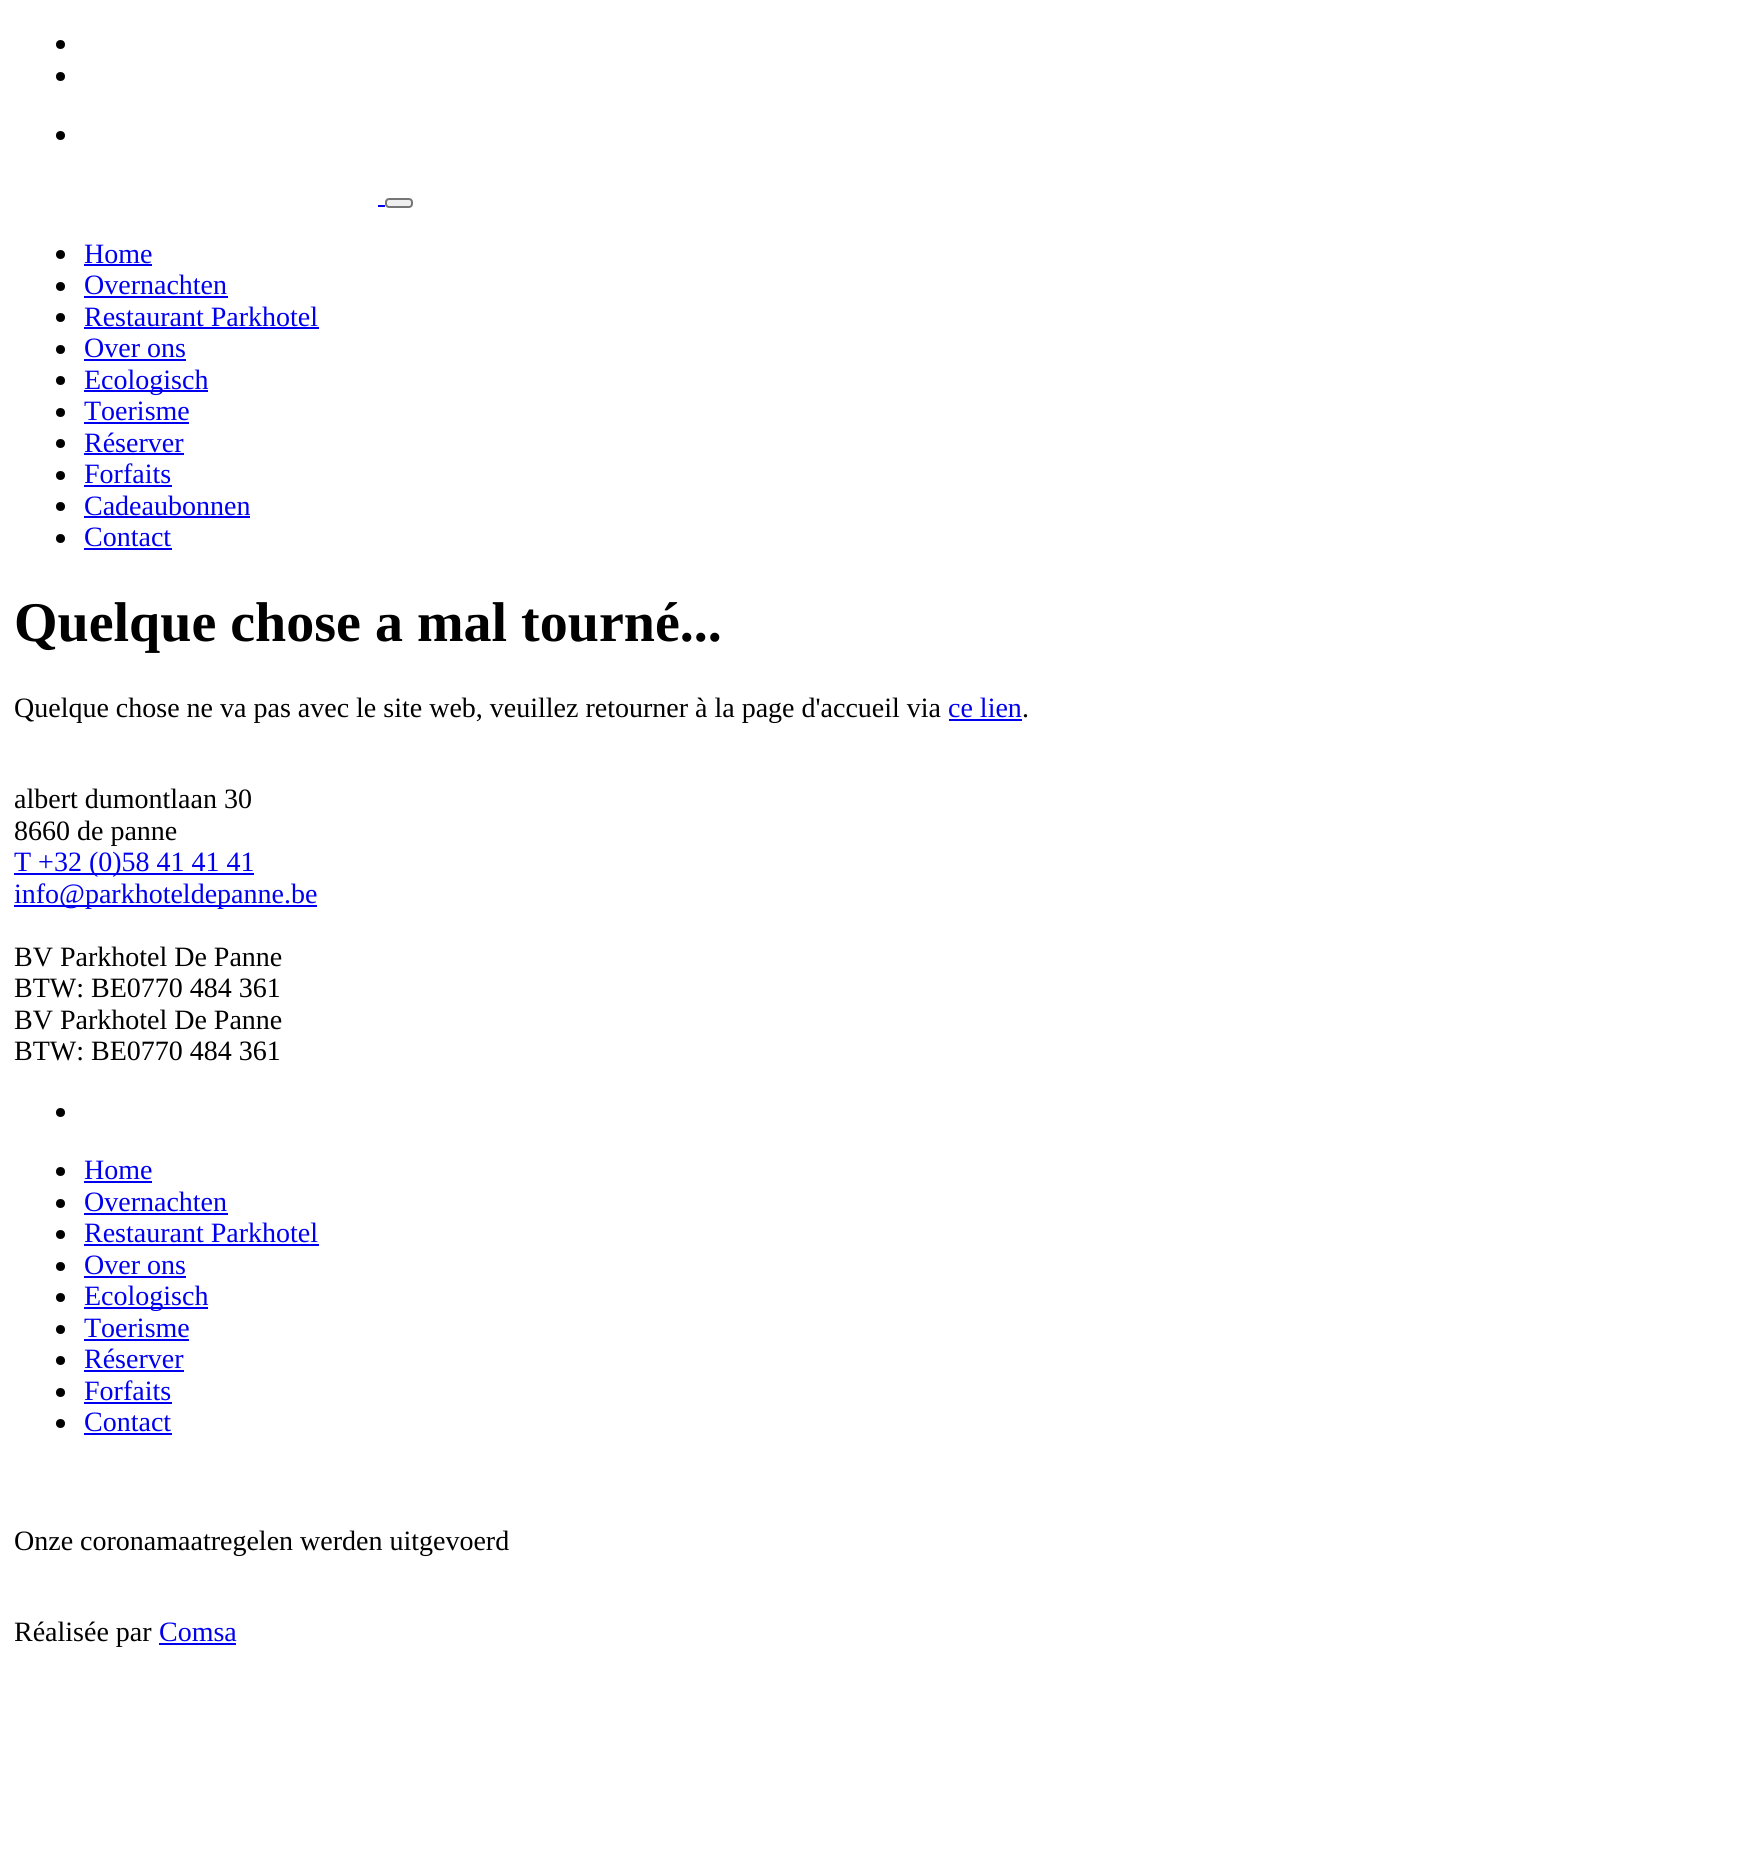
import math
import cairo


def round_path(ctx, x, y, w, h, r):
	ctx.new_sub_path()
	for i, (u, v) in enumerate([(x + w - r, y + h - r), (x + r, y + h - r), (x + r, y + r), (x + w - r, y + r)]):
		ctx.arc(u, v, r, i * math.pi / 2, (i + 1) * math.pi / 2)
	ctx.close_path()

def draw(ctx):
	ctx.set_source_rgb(1, 1, 1)
	ctx.paint()
	ctx.set_source_rgb(0, 0, 0)
	ctx.arc(60.5, 44.5, 4.5, 0, 2 * math.pi)
	ctx.fill()
	ctx.arc(60.5, 76.5, 4.5, 0, 2 * math.pi)
	ctx.fill()
	ctx.arc(60.5, 135.5, 4.5, 0, 2 * math.pi)
	ctx.fill()
	ctx.set_source_rgb(0, 0, 0.933)
	ctx.rectangle(378, 205, 7, 2)
	ctx.fill()
	ctx.set_source_rgb(0.937, 0.937, 0.937)
	round_path(ctx, 386, 199, 26, 8, 3)
	ctx.fill_preserve()
	ctx.set_source_rgb(0.463, 0.463, 0.463)
	ctx.stroke()
	ctx.set_source_rgb(0, 0, 0)
	ctx.arc(60.5, 254.5, 4.5, 0, 2 * math.pi)
	ctx.fill()
	ctx.select_font_face('Liberation Serif')
	ctx.set_font_size(28)
	ctx.set_source_rgb(0, 0, 0.933)
	ctx.move_to(84, 263)
	ctx.show_text('Home')
	ctx.rectangle(84, 264, 68, 2)
	ctx.fill()
	ctx.set_source_rgb(0, 0, 0)
	ctx.arc(60.5, 286.5, 4.5, 0, 2 * math.pi)
	ctx.fill()
	ctx.set_source_rgb(0, 0, 0.933)
	ctx.move_to(84, 294)
	ctx.show_text('Overnachten')
	ctx.rectangle(84, 296, 144, 2)
	ctx.fill()
	ctx.set_source_rgb(0, 0, 0)
	ctx.arc(60.5, 317.5, 4.5, 0, 2 * math.pi)
	ctx.fill()
	ctx.set_source_rgb(0, 0, 0.933)
	ctx.move_to(84, 326)
	ctx.show_text('Restaurant Parkhotel')
	ctx.rectangle(84, 327, 235, 2)
	ctx.fill()
	ctx.set_source_rgb(0, 0, 0)
	ctx.arc(60.5, 349.5, 4.5, 0, 2 * math.pi)
	ctx.fill()
	ctx.set_source_rgb(0, 0, 0.933)
	ctx.move_to(84, 357)
	ctx.show_text('Over ons')
	ctx.rectangle(84, 359, 102, 2)
	ctx.fill()
	ctx.set_source_rgb(0, 0, 0)
	ctx.arc(60.5, 380.5, 4.5, 0, 2 * math.pi)
	ctx.fill()
	ctx.set_source_rgb(0, 0, 0.933)
	ctx.rectangle(84, 390, 124, 2)
	ctx.fill()
	ctx.move_to(84, 389)
	ctx.show_text('Ecologisch')
	ctx.set_source_rgb(0, 0, 0)
	ctx.new_path()
	ctx.arc(60.5, 412.5, 4.5, 0, 2 * math.pi)
	ctx.fill()
	ctx.set_source_rgb(0, 0, 0.933)
	ctx.move_to(84, 420)
	ctx.show_text('Toerisme')
	ctx.rectangle(84, 422, 105, 2)
	ctx.fill()
	ctx.set_source_rgb(0, 0, 0)
	ctx.arc(60.5, 443.5, 4.5, 0, 2 * math.pi)
	ctx.fill()
	ctx.set_source_rgb(0, 0, 0.933)
	ctx.move_to(84, 452)
	ctx.show_text('Réserver')
	ctx.rectangle(84, 453, 100, 2)
	ctx.fill()
	ctx.set_source_rgb(0, 0, 0)
	ctx.arc(60.5, 475.5, 4.5, 0, 2 * math.pi)
	ctx.fill()
	ctx.set_source_rgb(0, 0, 0.933)
	ctx.move_to(84, 483)
	ctx.show_text('Forfaits')
	ctx.rectangle(84, 485, 88, 2)
	ctx.fill()
	ctx.set_source_rgb(0, 0, 0)
	ctx.arc(60.5, 506.5, 4.5, 0, 2 * math.pi)
	ctx.fill()
	ctx.set_source_rgb(0, 0, 0.933)
	ctx.move_to(84, 515)
	ctx.show_text('Cadeaubonnen')
	ctx.rectangle(84, 516, 166, 2)
	ctx.fill()
	ctx.set_source_rgb(0, 0, 0)
	ctx.arc(60.5, 538.5, 4.5, 0, 2 * math.pi)
	ctx.fill()
	ctx.set_source_rgb(0, 0, 0.933)
	ctx.move_to(84, 546)
	ctx.show_text('Contact')
	ctx.rectangle(84, 548, 88, 2)
	ctx.fill()
	ctx.select_font_face('Liberation Serif', cairo.FONT_SLANT_NORMAL, cairo.FONT_WEIGHT_BOLD)
	ctx.set_font_size(56)
	ctx.set_source_rgb(0, 0, 0)
	ctx.move_to(14, 641)
	ctx.show_text('Quelque chose a mal tourné...')
	ctx.select_font_face('Liberation Serif')
	ctx.set_font_size(28)
	ctx.move_to(14, 717)
	ctx.show_text('Quelque chose ne va pas avec le site web, veuillez retourner à la page d\'accueil via')
	ctx.set_source_rgb(0, 0, 0.933)
	ctx.move_to(948, 717)
	ctx.show_text('ce lien')
	ctx.rectangle(949, 719, 73, 2)
	ctx.fill()
	ctx.set_source_rgb(0, 0, 0)
	for x, y, s in [
		(1022, 717, '.'),
		(14, 808, 'albert dumontlaan 30'),
		(14, 840, '8660 de panne'),
	]:
		ctx.move_to(x, y)
		ctx.show_text(s)
	ctx.set_source_rgb(0, 0, 0.933)
	ctx.rectangle(14, 873, 240, 2)
	ctx.fill()
	ctx.move_to(14, 871)
	ctx.show_text('T +32 (0)58 41 41 41')
	ctx.rectangle(14, 905, 303, 2)
	ctx.fill()
	ctx.move_to(14, 903)
	ctx.show_text('info@parkhoteldepanne.be')
	ctx.set_source_rgb(0, 0, 0)
	for x, y, s in [
		(14, 966, 'BV Parkhotel De Panne'),
		(14, 997, 'BTW: BE0770 484 361'),
		(14, 1029, 'BV Parkhotel De Panne'),
		(14, 1060, 'BTW: BE0770 484 361'),
	]:
		ctx.move_to(x, y)
		ctx.show_text(s)
	ctx.new_path()
	ctx.arc(60.5, 1112.5, 4.5, 0, 2 * math.pi)
	ctx.fill()
	ctx.arc(60.5, 1171.5, 4.5, 0, 2 * math.pi)
	ctx.fill()
	ctx.set_source_rgb(0, 0, 0.933)
	ctx.move_to(84, 1179)
	ctx.show_text('Home')
	ctx.rectangle(84, 1181, 68, 2)
	ctx.fill()
	ctx.set_source_rgb(0, 0, 0)
	ctx.arc(60.5, 1203.5, 4.5, 0, 2 * math.pi)
	ctx.fill()
	ctx.set_source_rgb(0, 0, 0.933)
	ctx.move_to(84, 1211)
	ctx.show_text('Overnachten')
	ctx.rectangle(84, 1213, 144, 2)
	ctx.fill()
	ctx.set_source_rgb(0, 0, 0)
	ctx.arc(60.5, 1234.5, 4.5, 0, 2 * math.pi)
	ctx.fill()
	ctx.set_source_rgb(0, 0, 0.933)
	ctx.move_to(84, 1242)
	ctx.show_text('Restaurant Parkhotel')
	ctx.rectangle(84, 1244, 235, 2)
	ctx.fill()
	ctx.set_source_rgb(0, 0, 0)
	ctx.arc(60.5, 1266.5, 4.5, 0, 2 * math.pi)
	ctx.fill()
	ctx.set_source_rgb(0, 0, 0.933)
	ctx.move_to(84, 1274)
	ctx.show_text('Over ons')
	ctx.rectangle(84, 1276, 102, 2)
	ctx.fill()
	ctx.set_source_rgb(0, 0, 0)
	ctx.arc(60.5, 1297.5, 4.5, 0, 2 * math.pi)
	ctx.fill()
	ctx.set_source_rgb(0, 0, 0.933)
	ctx.rectangle(84, 1307, 124, 2)
	ctx.fill()
	ctx.move_to(84, 1305)
	ctx.show_text('Ecologisch')
	ctx.set_source_rgb(0, 0, 0)
	ctx.new_path()
	ctx.arc(60.5, 1329.5, 4.5, 0, 2 * math.pi)
	ctx.fill()
	ctx.set_source_rgb(0, 0, 0.933)
	ctx.move_to(84, 1337)
	ctx.show_text('Toerisme')
	ctx.rectangle(84, 1339, 105, 2)
	ctx.fill()
	ctx.set_source_rgb(0, 0, 0)
	ctx.arc(60.5, 1360.5, 4.5, 0, 2 * math.pi)
	ctx.fill()
	ctx.set_source_rgb(0, 0, 0.933)
	ctx.move_to(84, 1368)
	ctx.show_text('Réserver')
	ctx.rectangle(84, 1370, 100, 2)
	ctx.fill()
	ctx.set_source_rgb(0, 0, 0)
	ctx.arc(60.5, 1392.5, 4.5, 0, 2 * math.pi)
	ctx.fill()
	ctx.set_source_rgb(0, 0, 0.933)
	ctx.move_to(84, 1400)
	ctx.show_text('Forfaits')
	ctx.rectangle(84, 1402, 88, 2)
	ctx.fill()
	ctx.set_source_rgb(0, 0, 0)
	ctx.arc(60.5, 1423.5, 4.5, 0, 2 * math.pi)
	ctx.fill()
	ctx.set_source_rgb(0, 0, 0.933)
	ctx.move_to(84, 1431)
	ctx.show_text('Contact')
	ctx.rectangle(84, 1433, 88, 2)
	ctx.fill()
	ctx.set_source_rgb(0, 0, 0)
	ctx.move_to(14, 1550)
	ctx.show_text('Onze coronamaatregelen werden uitgevoerd')
	ctx.move_to(14, 1641)
	ctx.show_text('Réalisée par')
	ctx.set_source_rgb(0, 0, 0.933)
	ctx.move_to(159, 1641)
	ctx.show_text('Comsa')
	ctx.rectangle(159, 1643, 77, 2)
	ctx.fill()


surface = cairo.ImageSurface(cairo.FORMAT_RGB24, 1737, 1860)
ctx = cairo.Context(surface)
options = cairo.FontOptions()
options.set_hint_metrics(cairo.HINT_METRICS_OFF)
options.set_hint_style(cairo.HINT_STYLE_NONE)
ctx.set_font_options(options)
ctx.set_miter_limit(4)
draw(ctx)
surface.write_to_png('image.png')
